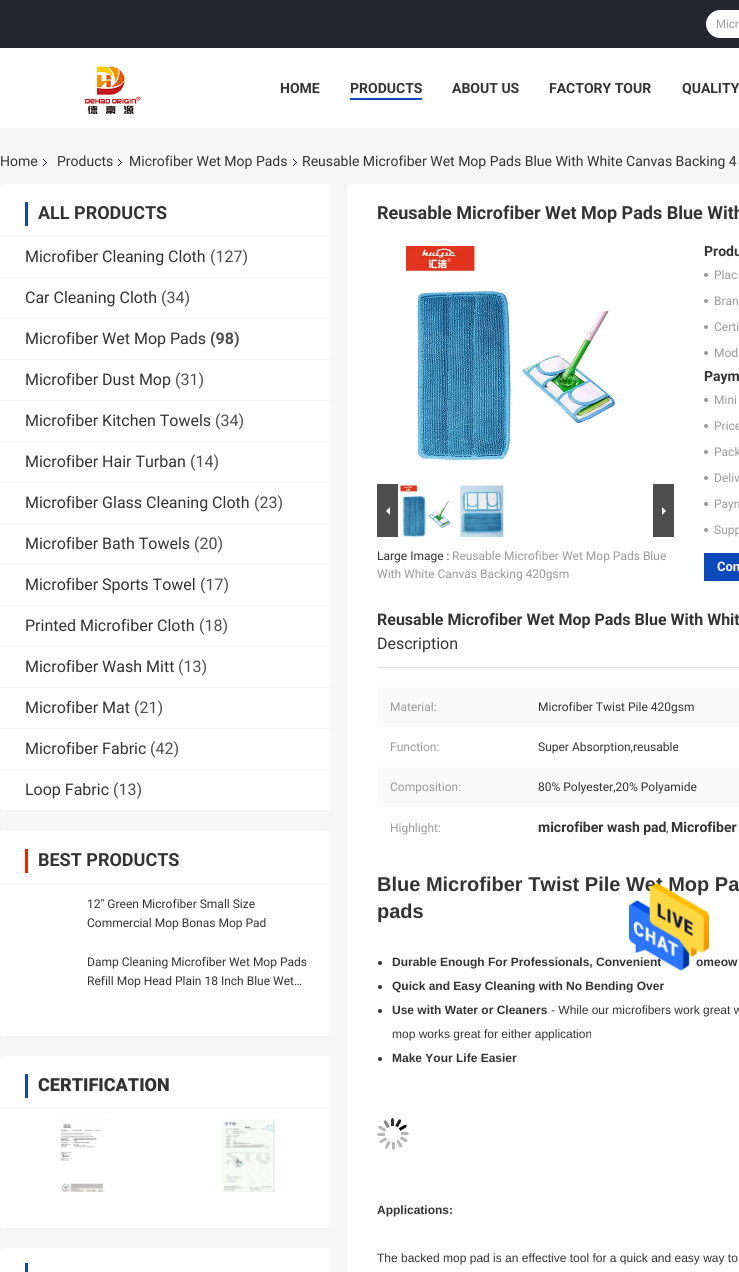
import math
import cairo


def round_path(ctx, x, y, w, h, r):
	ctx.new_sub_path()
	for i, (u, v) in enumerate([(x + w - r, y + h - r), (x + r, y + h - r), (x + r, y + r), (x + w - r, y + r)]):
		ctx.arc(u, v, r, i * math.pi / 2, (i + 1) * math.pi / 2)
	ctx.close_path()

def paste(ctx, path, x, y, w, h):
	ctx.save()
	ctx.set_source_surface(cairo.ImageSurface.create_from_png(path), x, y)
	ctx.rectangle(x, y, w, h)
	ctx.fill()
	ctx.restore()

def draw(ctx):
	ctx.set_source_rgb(0.961, 0.961, 0.961)
	ctx.paint()
	ctx.set_source_rgb(1, 1, 1)
	ctx.rectangle(0, 48, 739, 80)
	ctx.fill()
	ctx.set_source_rgb(0.149, 0.149, 0.18)
	ctx.rectangle(0, 0, 739, 48)
	ctx.fill()
	ctx.set_source_rgb(1, 1, 1)
	ctx.new_path()
	ctx.move_to(720, 10)
	ctx.line_to(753, 10)
	ctx.line_to(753, 38)
	ctx.line_to(720, 38)
	ctx.curve_to(712.5, 38, 706, 31.5, 706, 24)
	ctx.curve_to(706, 16.5, 712.5, 10, 720, 10)
	ctx.close_path()
	ctx.fill()
	ctx.select_font_face('Liberation Sans')
	ctx.set_font_size(12)
	ctx.set_source_rgb(0.6, 0.6, 0.6)
	ctx.move_to(716, 28)
	ctx.show_text('Micr')
	paste(ctx, 'media/1.png', 85, 66, 56, 49)
	ctx.select_font_face('Roboto', cairo.FONT_SLANT_NORMAL, cairo.FONT_WEIGHT_BOLD)
	ctx.set_font_size(14)
	ctx.set_source_rgb(0.2, 0.2, 0.2)
	ctx.move_to(280, 93)
	ctx.show_text('HOME')
	ctx.move_to(350, 93)
	ctx.show_text('PRODUCTS')
	ctx.set_source_rgb(0.055, 0.286, 0.733)
	ctx.rectangle(350, 98, 72, 2)
	ctx.fill()
	ctx.set_source_rgb(0.2, 0.2, 0.2)
	for x, y, s in [
		(452, 93, 'ABOUT US'),
		(549, 93, 'FACTORY TOUR'),
		(682, 93, 'QUALITY'),
	]:
		ctx.move_to(x, y)
		ctx.show_text(s)
	ctx.select_font_face('Roboto')
	ctx.move_to(0, 166)
	ctx.show_text('Home')
	paste(ctx, 'media/2.png', 43, 159, 4, 7)
	ctx.move_to(57, 166)
	ctx.show_text('Products')
	paste(ctx, 'media/2.png', 118, 159, 4, 7)
	ctx.move_to(129, 166)
	ctx.show_text('Microfiber Wet Mop Pads')
	paste(ctx, 'media/2.png', 293, 159, 4, 7)
	ctx.move_to(302, 166)
	ctx.show_text('Reusable Microfiber Wet Mop Pads Blue With White Canvas Backing 4')
	ctx.set_source_rgb(1, 1, 1)
	round_path(ctx, 0, 184, 330, 627, 4)
	ctx.fill()
	ctx.set_source_rgb(0.961, 0.961, 0.961)
	ctx.rectangle(0, 236, 330, 1)
	ctx.fill()
	ctx.set_source_rgb(0.055, 0.286, 0.733)
	ctx.rectangle(25, 202, 3, 24)
	ctx.fill()
	ctx.select_font_face('Roboto', cairo.FONT_SLANT_NORMAL, cairo.FONT_WEIGHT_BOLD)
	ctx.set_font_size(18)
	ctx.set_source_rgb(0.2, 0.2, 0.2)
	ctx.move_to(38, 219)
	ctx.show_text('ALL PRODUCTS')
	ctx.set_source_rgb(0.961, 0.961, 0.961)
	ctx.rectangle(0, 277, 330, 1)
	ctx.fill()
	ctx.select_font_face('Roboto')
	ctx.set_font_size(16)
	ctx.set_source_rgb(0.2, 0.2, 0.2)
	ctx.move_to(25, 262)
	ctx.show_text('Microfiber Cleaning Cloth')
	ctx.set_source_rgb(0.306, 0.306, 0.306)
	ctx.move_to(210, 262)
	ctx.show_text('(127)')
	ctx.set_source_rgb(0.961, 0.961, 0.961)
	ctx.rectangle(0, 318, 330, 1)
	ctx.fill()
	ctx.set_source_rgb(0.2, 0.2, 0.2)
	ctx.move_to(25, 303)
	ctx.show_text('Car Cleaning Cloth')
	ctx.set_source_rgb(0.306, 0.306, 0.306)
	ctx.move_to(161, 303)
	ctx.show_text('(34)')
	ctx.set_source_rgb(0.961, 0.961, 0.961)
	ctx.rectangle(0, 359, 330, 1)
	ctx.fill()
	ctx.set_source_rgb(0.2, 0.2, 0.2)
	ctx.move_to(25, 344)
	ctx.show_text('Microfiber Wet Mop Pads')
	ctx.select_font_face('Roboto', cairo.FONT_SLANT_NORMAL, cairo.FONT_WEIGHT_BOLD)
	ctx.set_source_rgb(0.306, 0.306, 0.306)
	ctx.move_to(210, 344)
	ctx.show_text('(98)')
	ctx.set_source_rgb(0.961, 0.961, 0.961)
	ctx.rectangle(0, 400, 330, 1)
	ctx.fill()
	ctx.select_font_face('Roboto')
	ctx.set_source_rgb(0.2, 0.2, 0.2)
	ctx.move_to(25, 385)
	ctx.show_text('Microfiber Dust Mop')
	ctx.set_source_rgb(0.306, 0.306, 0.306)
	ctx.move_to(175, 385)
	ctx.show_text('(31)')
	ctx.set_source_rgb(0.961, 0.961, 0.961)
	ctx.rectangle(0, 441, 330, 1)
	ctx.fill()
	ctx.set_source_rgb(0.2, 0.2, 0.2)
	ctx.move_to(25, 426)
	ctx.show_text('Microfiber Kitchen Towels')
	ctx.set_source_rgb(0.306, 0.306, 0.306)
	ctx.move_to(215, 426)
	ctx.show_text('(34)')
	ctx.set_source_rgb(0.961, 0.961, 0.961)
	ctx.rectangle(0, 482, 330, 1)
	ctx.fill()
	ctx.set_source_rgb(0.2, 0.2, 0.2)
	ctx.move_to(25, 467)
	ctx.show_text('Microfiber Hair Turban')
	ctx.set_source_rgb(0.306, 0.306, 0.306)
	ctx.move_to(190, 467)
	ctx.show_text('(14)')
	ctx.set_source_rgb(0.961, 0.961, 0.961)
	ctx.rectangle(0, 523, 330, 1)
	ctx.fill()
	ctx.set_source_rgb(0.2, 0.2, 0.2)
	ctx.move_to(25, 508)
	ctx.show_text('Microfiber Glass Cleaning Cloth')
	ctx.set_source_rgb(0.306, 0.306, 0.306)
	ctx.move_to(254, 508)
	ctx.show_text('(23)')
	ctx.set_source_rgb(0.961, 0.961, 0.961)
	ctx.rectangle(0, 564, 330, 1)
	ctx.fill()
	ctx.set_source_rgb(0.2, 0.2, 0.2)
	ctx.move_to(25, 549)
	ctx.show_text('Microfiber Bath Towels')
	ctx.set_source_rgb(0.306, 0.306, 0.306)
	ctx.move_to(194, 549)
	ctx.show_text('(20)')
	ctx.set_source_rgb(0.961, 0.961, 0.961)
	ctx.rectangle(0, 605, 330, 1)
	ctx.fill()
	ctx.set_source_rgb(0.2, 0.2, 0.2)
	ctx.move_to(25, 590)
	ctx.show_text('Microfiber Sports Towel')
	ctx.set_source_rgb(0.306, 0.306, 0.306)
	ctx.move_to(200, 590)
	ctx.show_text('(17)')
	ctx.set_source_rgb(0.961, 0.961, 0.961)
	ctx.rectangle(0, 646, 330, 1)
	ctx.fill()
	ctx.set_source_rgb(0.2, 0.2, 0.2)
	ctx.move_to(25, 631)
	ctx.show_text('Printed Microfiber Cloth')
	ctx.set_source_rgb(0.306, 0.306, 0.306)
	ctx.move_to(199, 631)
	ctx.show_text('(18)')
	ctx.set_source_rgb(0.961, 0.961, 0.961)
	ctx.rectangle(0, 687, 330, 1)
	ctx.fill()
	ctx.set_source_rgb(0.2, 0.2, 0.2)
	ctx.move_to(25, 672)
	ctx.show_text('Microfiber Wash Mitt')
	ctx.set_source_rgb(0.306, 0.306, 0.306)
	ctx.move_to(178, 672)
	ctx.show_text('(13)')
	ctx.set_source_rgb(0.961, 0.961, 0.961)
	ctx.rectangle(0, 728, 330, 1)
	ctx.fill()
	ctx.set_source_rgb(0.2, 0.2, 0.2)
	ctx.move_to(25, 713)
	ctx.show_text('Microfiber Mat')
	ctx.set_source_rgb(0.306, 0.306, 0.306)
	ctx.move_to(134, 713)
	ctx.show_text('(21)')
	ctx.set_source_rgb(0.961, 0.961, 0.961)
	ctx.rectangle(0, 769, 330, 1)
	ctx.fill()
	ctx.set_source_rgb(0.2, 0.2, 0.2)
	ctx.move_to(25, 754)
	ctx.show_text('Microfiber Fabric')
	ctx.set_source_rgb(0.306, 0.306, 0.306)
	ctx.move_to(150, 754)
	ctx.show_text('(42)')
	ctx.set_source_rgb(0.961, 0.961, 0.961)
	ctx.rectangle(0, 810, 330, 1)
	ctx.fill()
	ctx.set_source_rgb(0.2, 0.2, 0.2)
	ctx.move_to(25, 795)
	ctx.show_text('Loop Fabric')
	ctx.set_source_rgb(0.306, 0.306, 0.306)
	ctx.move_to(113, 795)
	ctx.show_text('(13)')
	ctx.set_source_rgb(1, 1, 1)
	round_path(ctx, 0, 831, 330, 205, 4)
	ctx.fill()
	ctx.set_source_rgb(0.961, 0.961, 0.961)
	ctx.rectangle(0, 883, 330, 1)
	ctx.fill()
	ctx.set_source_rgb(0.945, 0.137, 0)
	ctx.rectangle(25, 849, 3, 24)
	ctx.fill()
	ctx.select_font_face('Roboto', cairo.FONT_SLANT_NORMAL, cairo.FONT_WEIGHT_BOLD)
	ctx.set_font_size(18)
	ctx.set_source_rgb(0.2, 0.2, 0.2)
	ctx.move_to(38, 866)
	ctx.show_text('BEST PRODUCTS')
	ctx.select_font_face('Roboto')
	ctx.set_font_size(12)
	for x, y, s in [
		(87, 908, '12" Green Microfiber Small Size'),
		(87, 927, 'Commercial Mop Bonas Mop Pad'),
		(87, 966, 'Damp Cleaning Microfiber Wet Mop Pads'),
		(87, 985, 'Refill Mop Head Plain 18 Inch Blue Wet…'),
	]:
		ctx.move_to(x, y)
		ctx.show_text(s)
	ctx.set_source_rgb(1, 1, 1)
	round_path(ctx, 0, 1056, 330, 172, 4)
	ctx.fill()
	ctx.set_source_rgb(0.961, 0.961, 0.961)
	ctx.rectangle(0, 1108, 330, 1)
	ctx.fill()
	ctx.set_source_rgb(0.055, 0.286, 0.733)
	ctx.rectangle(25, 1074, 3, 24)
	ctx.fill()
	ctx.select_font_face('Roboto Black')
	ctx.set_font_size(18)
	ctx.set_source_rgb(0.2, 0.2, 0.2)
	ctx.move_to(38, 1091)
	ctx.show_text('CERTIFICATION')
	paste(ctx, 'media/3.png', 57, 1119, 51, 73)
	paste(ctx, 'media/4.png', 221, 1119, 54, 73)
	ctx.set_source_rgb(1, 1, 1)
	round_path(ctx, 0, 1248, 330, 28, 4)
	ctx.fill()
	ctx.set_source_rgb(0.055, 0.286, 0.733)
	ctx.rectangle(25, 1263, 3, 9)
	ctx.fill()
	ctx.set_source_rgb(1, 1, 1)
	round_path(ctx, 347, 184, 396, 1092, 4)
	ctx.fill()
	ctx.select_font_face('Roboto', cairo.FONT_SLANT_NORMAL, cairo.FONT_WEIGHT_BOLD)
	ctx.set_source_rgb(0.2, 0.2, 0.2)
	ctx.move_to(377, 219)
	ctx.show_text('Reusable Microfiber Wet Mop Pads Blue With')
	paste(ctx, 'media/5.png', 406, 246, 211, 217)
	ctx.set_source_rgb(0.302, 0.302, 0.302)
	ctx.rectangle(377, 484, 21, 53)
	ctx.fill()
	ctx.set_source_rgb(1, 1, 1)
	ctx.new_path()
	ctx.move_to(390, 507)
	ctx.line_to(390, 515)
	ctx.line_to(386, 511)
	ctx.close_path()
	ctx.fill()
	paste(ctx, 'media/6.png', 400, 485, 51, 52)
	paste(ctx, 'media/7.png', 460, 485, 44, 52)
	ctx.set_source_rgb(0.302, 0.302, 0.302)
	ctx.rectangle(653, 484, 21, 53)
	ctx.fill()
	ctx.set_source_rgb(1, 1, 1)
	ctx.new_path()
	ctx.move_to(662, 515)
	ctx.line_to(662, 507)
	ctx.line_to(666, 511)
	ctx.close_path()
	ctx.fill()
	ctx.select_font_face('Roboto')
	ctx.set_font_size(12)
	ctx.set_source_rgb(0.2, 0.2, 0.2)
	ctx.move_to(377, 560)
	ctx.show_text('Large Image :')
	ctx.set_source_rgb(0.6, 0.6, 0.6)
	ctx.move_to(452, 560)
	ctx.show_text('Reusable Microfiber Wet Mop Pads Blue')
	ctx.move_to(377, 578)
	ctx.show_text('With White Canvas Backing 420gsm')
	ctx.select_font_face('Roboto', cairo.FONT_SLANT_NORMAL, cairo.FONT_WEIGHT_BOLD)
	ctx.set_font_size(14)
	ctx.set_source_rgb(0.2, 0.2, 0.2)
	ctx.move_to(704, 256)
	ctx.show_text('Produ')
	ctx.set_source_rgb(0.6, 0.6, 0.6)
	ctx.new_path()
	ctx.arc(706, 275, 2, 0, 2 * math.pi)
	ctx.fill()
	ctx.select_font_face('Roboto')
	ctx.set_font_size(12)
	ctx.move_to(714, 279)
	ctx.show_text('Plac')
	ctx.new_path()
	ctx.arc(706, 301, 2, 0, 2 * math.pi)
	ctx.fill()
	ctx.move_to(714, 305)
	ctx.show_text('Bran')
	ctx.new_path()
	ctx.arc(706, 327, 2, 0, 2 * math.pi)
	ctx.fill()
	ctx.move_to(714, 331)
	ctx.show_text('Certi')
	ctx.new_path()
	ctx.arc(706, 353, 2, 0, 2 * math.pi)
	ctx.fill()
	ctx.move_to(714, 357)
	ctx.show_text('Mod')
	ctx.select_font_face('Roboto', cairo.FONT_SLANT_NORMAL, cairo.FONT_WEIGHT_BOLD)
	ctx.set_font_size(14)
	ctx.set_source_rgb(0.2, 0.2, 0.2)
	ctx.move_to(704, 381)
	ctx.show_text('Paym')
	ctx.set_source_rgb(0.6, 0.6, 0.6)
	ctx.new_path()
	ctx.arc(706, 400, 2, 0, 2 * math.pi)
	ctx.fill()
	ctx.select_font_face('Roboto')
	ctx.set_font_size(12)
	ctx.move_to(714, 404)
	ctx.show_text('Mini')
	ctx.new_path()
	ctx.arc(706, 426, 2, 0, 2 * math.pi)
	ctx.fill()
	ctx.move_to(714, 430)
	ctx.show_text('Price')
	ctx.new_path()
	ctx.arc(706, 452, 2, 0, 2 * math.pi)
	ctx.fill()
	ctx.move_to(714, 456)
	ctx.show_text('Pack')
	ctx.new_path()
	ctx.arc(706, 478, 2, 0, 2 * math.pi)
	ctx.fill()
	ctx.move_to(714, 482)
	ctx.show_text('Deliv')
	ctx.new_path()
	ctx.arc(706, 504, 2, 0, 2 * math.pi)
	ctx.fill()
	ctx.move_to(714, 508)
	ctx.show_text('Paym')
	ctx.new_path()
	ctx.arc(706, 530, 2, 0, 2 * math.pi)
	ctx.fill()
	ctx.move_to(714, 534)
	ctx.show_text('Supp')
	ctx.set_source_rgb(0.055, 0.286, 0.733)
	ctx.rectangle(704, 553, 35, 28)
	ctx.fill()
	ctx.select_font_face('Roboto', cairo.FONT_SLANT_NORMAL, cairo.FONT_WEIGHT_BOLD)
	ctx.set_font_size(13)
	ctx.set_source_rgb(1, 1, 1)
	ctx.move_to(717, 571)
	ctx.show_text('Con')
	ctx.set_source_rgb(0.867, 0.867, 0.867)
	ctx.rectangle(377, 667, 362, 1)
	ctx.fill()
	ctx.set_font_size(16)
	ctx.set_source_rgb(0.2, 0.2, 0.2)
	ctx.move_to(377, 625)
	ctx.show_text('Reusable Microfiber Wet Mop Pads Blue With Whit')
	ctx.select_font_face('Roboto')
	ctx.move_to(377, 649)
	ctx.show_text('Description')
	ctx.set_source_rgb(0.98, 0.98, 0.98)
	ctx.rectangle(377, 687, 362, 40)
	ctx.fill()
	ctx.set_font_size(12)
	ctx.set_source_rgb(0.6, 0.6, 0.6)
	ctx.move_to(390, 711)
	ctx.show_text('Material:')
	ctx.set_source_rgb(0.2, 0.2, 0.2)
	ctx.move_to(538, 711)
	ctx.show_text('Microfiber Twist Pile 420gsm')
	ctx.set_source_rgb(0.6, 0.6, 0.6)
	ctx.move_to(390, 751)
	ctx.show_text('Function:')
	ctx.set_source_rgb(0.2, 0.2, 0.2)
	ctx.move_to(538, 751)
	ctx.show_text('Super Absorption,reusable')
	ctx.set_source_rgb(0.98, 0.98, 0.98)
	ctx.rectangle(377, 767, 362, 40)
	ctx.fill()
	ctx.set_source_rgb(0.6, 0.6, 0.6)
	ctx.move_to(390, 791)
	ctx.show_text('Composition:')
	ctx.set_source_rgb(0.2, 0.2, 0.2)
	ctx.move_to(538, 791)
	ctx.show_text('80% Polyester,20% Polyamide')
	ctx.set_source_rgb(0.6, 0.6, 0.6)
	ctx.move_to(390, 832)
	ctx.show_text('Highlight:')
	ctx.select_font_face('Roboto', cairo.FONT_SLANT_NORMAL, cairo.FONT_WEIGHT_BOLD)
	ctx.set_font_size(14)
	ctx.set_source_rgb(0.2, 0.2, 0.2)
	ctx.move_to(538, 832)
	ctx.show_text('microfiber wash pad')
	ctx.select_font_face('Roboto')
	ctx.set_font_size(12)
	ctx.move_to(666, 832)
	ctx.show_text(',')
	ctx.select_font_face('Roboto', cairo.FONT_SLANT_NORMAL, cairo.FONT_WEIGHT_BOLD)
	ctx.set_font_size(14)
	ctx.move_to(671, 832)
	ctx.show_text('Microfiber')
	ctx.select_font_face('Liberation Sans', cairo.FONT_SLANT_NORMAL, cairo.FONT_WEIGHT_BOLD)
	ctx.set_font_size(20)
	ctx.move_to(377, 891)
	ctx.show_text('Blue Microfiber Twist Pile Wet Mop Pa')
	ctx.move_to(377, 918)
	ctx.show_text('pads')
	ctx.new_path()
	ctx.arc(380, 963, 2, 0, 2 * math.pi)
	ctx.fill()
	ctx.set_font_size(12)
	ctx.move_to(392, 966)
	ctx.show_text('Durable Enough For Professionals, Convenient')
	ctx.move_to(696, 966)
	ctx.show_text('omeow')
	ctx.new_path()
	ctx.arc(380, 987, 2, 0, 2 * math.pi)
	ctx.fill()
	ctx.move_to(392, 990)
	ctx.show_text('Quick and Easy Cleaning with No Bending Over')
	ctx.new_path()
	ctx.arc(380, 1011, 2, 0, 2 * math.pi)
	ctx.fill()
	ctx.move_to(392, 1014)
	ctx.show_text('Use with Water or Cleaners')
	ctx.select_font_face('Liberation Sans')
	ctx.move_to(551, 1014)
	ctx.show_text('- While our microfibers work great w')
	ctx.move_to(392, 1038)
	ctx.show_text('mop works great for either application')
	ctx.new_path()
	ctx.arc(380, 1059, 2, 0, 2 * math.pi)
	ctx.fill()
	ctx.select_font_face('Liberation Sans', cairo.FONT_SLANT_NORMAL, cairo.FONT_WEIGHT_BOLD)
	ctx.move_to(392, 1062)
	ctx.show_text('Make Your Life Easier')
	paste(ctx, 'media/8.png', 377, 1118, 32, 32)
	ctx.move_to(377, 1214)
	ctx.show_text('Applications:')
	ctx.select_font_face('Liberation Sans')
	ctx.move_to(377, 1262)
	ctx.show_text('The backed mop pad is an effective tool for a quick and easy way to')
	paste(ctx, 'media/9.png', 629, 883, 80, 88)


surface = cairo.ImageSurface(cairo.FORMAT_RGB24, 739, 1272)
ctx = cairo.Context(surface)
options = cairo.FontOptions()
options.set_hint_metrics(cairo.HINT_METRICS_OFF)
options.set_hint_style(cairo.HINT_STYLE_NONE)
ctx.set_font_options(options)
ctx.set_miter_limit(4)
draw(ctx)
surface.write_to_png('image.png')
